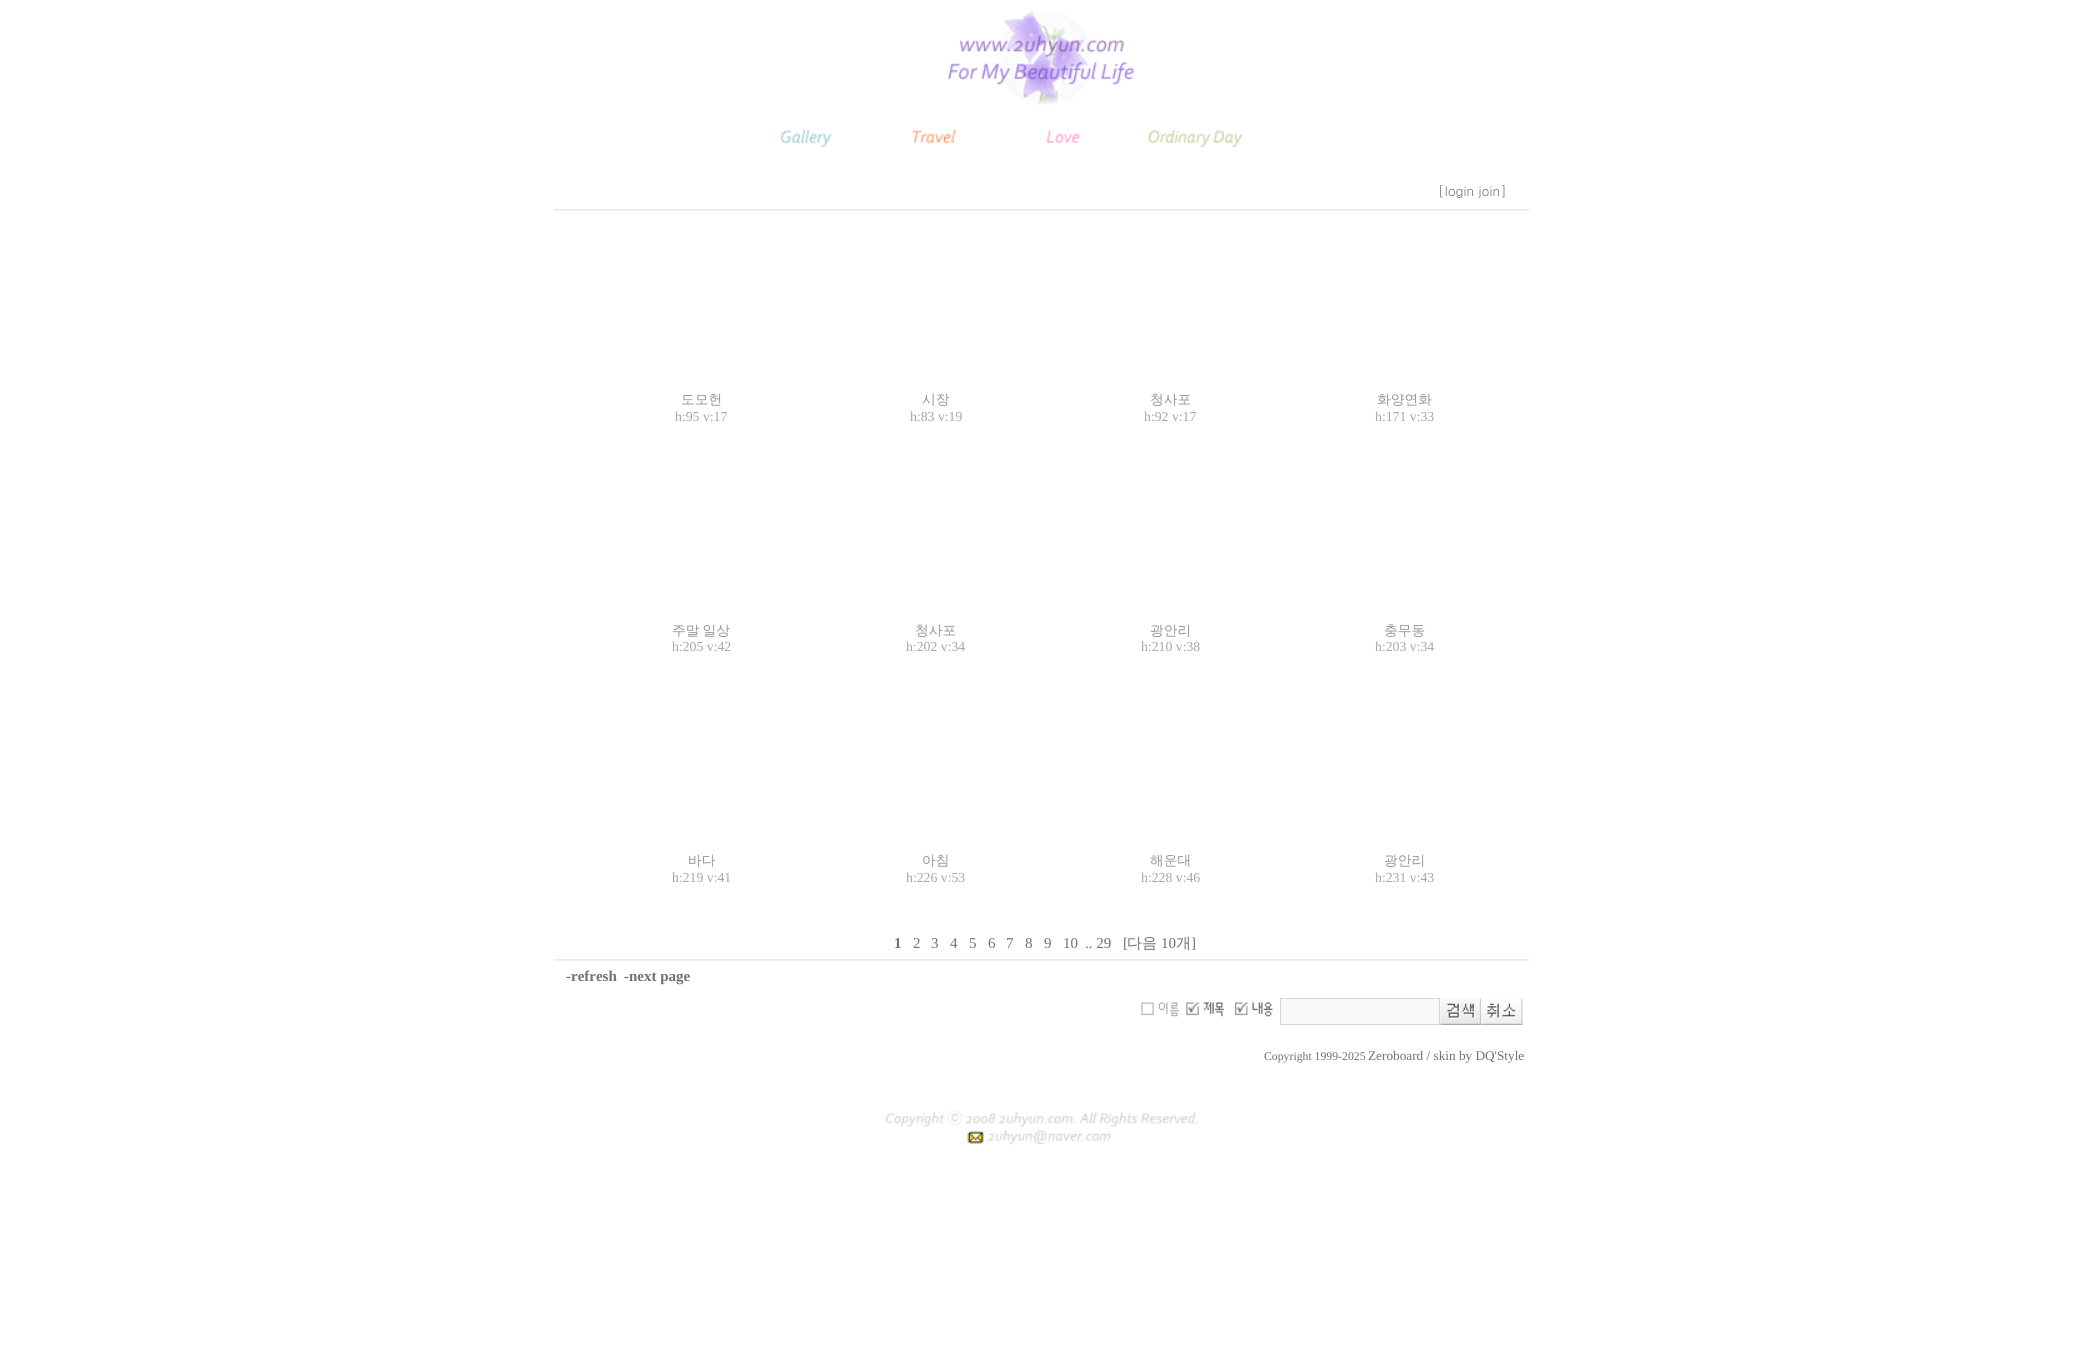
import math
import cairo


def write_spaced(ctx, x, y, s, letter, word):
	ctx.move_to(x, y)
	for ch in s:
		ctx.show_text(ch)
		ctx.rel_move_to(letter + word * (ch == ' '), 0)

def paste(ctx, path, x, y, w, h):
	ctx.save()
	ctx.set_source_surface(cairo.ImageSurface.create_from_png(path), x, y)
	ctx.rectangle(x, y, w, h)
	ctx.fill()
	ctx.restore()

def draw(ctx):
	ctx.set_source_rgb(1, 1, 1)
	ctx.paint()
	paste(ctx, 'media/1.png', 947, 11, 187, 94)
	paste(ctx, 'media/2.png', 781, 129, 51, 19)
	paste(ctx, 'media/3.png', 912, 129, 45, 15)
	paste(ctx, 'media/4.png', 1046, 130, 34, 14)
	paste(ctx, 'media/5.png', 1148, 130, 95, 18)
	ctx.select_font_face('Dotum')
	ctx.set_font_size(13.25)
	ctx.set_source_rgb(0.439, 0.439, 0.439)
	ctx.move_to(1438, 196)
	ctx.show_text('[login join]')
	ctx.set_source_rgb(0.918, 0.918, 0.918)
	ctx.rectangle(554, 209, 975, 1)
	ctx.fill()
	ctx.set_source_rgb(0.941, 0.941, 0.941)
	ctx.rectangle(554, 210, 975, 1)
	ctx.fill()
	ctx.select_font_face('WenQuanYi Zen Hei Medium')
	ctx.set_font_size(13.75)
	ctx.set_source_rgb(0.584, 0.584, 0.584)
	ctx.move_to(681, 404)
	ctx.show_text('도모헌')
	ctx.select_font_face('Liberation Serif')
	ctx.set_source_rgb(0.651, 0.651, 0.651)
	ctx.move_to(675, 421)
	ctx.show_text('h:95 v:17')
	ctx.select_font_face('WenQuanYi Zen Hei Medium')
	ctx.set_source_rgb(0.584, 0.584, 0.584)
	ctx.move_to(922, 404)
	ctx.show_text('시장')
	ctx.select_font_face('Liberation Serif')
	ctx.set_source_rgb(0.651, 0.651, 0.651)
	ctx.move_to(910, 421)
	ctx.show_text('h:83 v:19')
	ctx.select_font_face('WenQuanYi Zen Hei Medium')
	ctx.set_source_rgb(0.584, 0.584, 0.584)
	ctx.move_to(1150, 404)
	ctx.show_text('청사포')
	ctx.select_font_face('Liberation Serif')
	ctx.set_source_rgb(0.651, 0.651, 0.651)
	ctx.move_to(1144, 421)
	ctx.show_text('h:92 v:17')
	ctx.select_font_face('WenQuanYi Zen Hei Medium')
	ctx.set_source_rgb(0.584, 0.584, 0.584)
	ctx.move_to(1377, 404)
	ctx.show_text('화양연화')
	ctx.select_font_face('Liberation Serif')
	ctx.set_source_rgb(0.651, 0.651, 0.651)
	ctx.move_to(1375, 421)
	ctx.show_text('h:171 v:33')
	ctx.select_font_face('WenQuanYi Zen Hei Medium')
	ctx.set_source_rgb(0.584, 0.584, 0.584)
	write_spaced(ctx, 672, 635, '주말 일상', 0, -1)
	ctx.select_font_face('Liberation Serif')
	ctx.set_source_rgb(0.651, 0.651, 0.651)
	ctx.move_to(672, 651)
	ctx.show_text('h:205 v:42')
	ctx.select_font_face('WenQuanYi Zen Hei Medium')
	ctx.set_source_rgb(0.584, 0.584, 0.584)
	ctx.move_to(915, 635)
	ctx.show_text('청사포')
	ctx.select_font_face('Liberation Serif')
	ctx.set_source_rgb(0.651, 0.651, 0.651)
	ctx.move_to(906, 651)
	ctx.show_text('h:202 v:34')
	ctx.select_font_face('WenQuanYi Zen Hei Medium')
	ctx.set_source_rgb(0.584, 0.584, 0.584)
	ctx.move_to(1150, 635)
	ctx.show_text('광안리')
	ctx.select_font_face('Liberation Serif')
	ctx.set_source_rgb(0.651, 0.651, 0.651)
	ctx.move_to(1141, 651)
	ctx.show_text('h:210 v:38')
	ctx.select_font_face('WenQuanYi Zen Hei Medium')
	ctx.set_source_rgb(0.584, 0.584, 0.584)
	ctx.move_to(1384, 635)
	ctx.show_text('충무동')
	ctx.select_font_face('Liberation Serif')
	ctx.set_source_rgb(0.651, 0.651, 0.651)
	ctx.move_to(1375, 651)
	ctx.show_text('h:203 v:34')
	ctx.select_font_face('WenQuanYi Zen Hei Medium')
	ctx.set_source_rgb(0.584, 0.584, 0.584)
	ctx.move_to(688, 865)
	ctx.show_text('바다')
	ctx.select_font_face('Liberation Serif')
	ctx.set_source_rgb(0.651, 0.651, 0.651)
	ctx.move_to(672, 882)
	ctx.show_text('h:219 v:41')
	ctx.select_font_face('WenQuanYi Zen Hei Medium')
	ctx.set_source_rgb(0.584, 0.584, 0.584)
	ctx.move_to(922, 865)
	ctx.show_text('아침')
	ctx.select_font_face('Liberation Serif')
	ctx.set_source_rgb(0.651, 0.651, 0.651)
	ctx.move_to(906, 882)
	ctx.show_text('h:226 v:53')
	ctx.select_font_face('WenQuanYi Zen Hei Medium')
	ctx.set_source_rgb(0.584, 0.584, 0.584)
	ctx.move_to(1150, 865)
	ctx.show_text('해운대')
	ctx.select_font_face('Liberation Serif')
	ctx.set_source_rgb(0.651, 0.651, 0.651)
	ctx.move_to(1141, 882)
	ctx.show_text('h:228 v:46')
	ctx.select_font_face('WenQuanYi Zen Hei Medium')
	ctx.set_source_rgb(0.584, 0.584, 0.584)
	ctx.move_to(1384, 865)
	ctx.show_text('광안리')
	ctx.select_font_face('Liberation Serif')
	ctx.set_source_rgb(0.651, 0.651, 0.651)
	ctx.move_to(1375, 882)
	ctx.show_text('h:231 v:43')
	ctx.select_font_face('Liberation Serif', cairo.FONT_SLANT_NORMAL, cairo.FONT_WEIGHT_BOLD)
	ctx.set_font_size(15)
	ctx.set_source_rgb(0.439, 0.439, 0.439)
	ctx.move_to(894, 948)
	ctx.show_text('1')
	ctx.select_font_face('Liberation Serif')
	for x, y, s in [
		(913, 948, '2'),
		(931, 948, '3'),
		(950, 948, '4'),
		(969, 948, '5'),
		(988, 948, '6'),
		(1006, 948, '7'),
		(1025, 948, '8'),
		(1044, 948, '9'),
		(1063, 948, '10'),
		(1085, 948, '.. 29'),
		(1123, 948, '['),
	]:
		ctx.move_to(x, y)
		ctx.show_text(s)
	ctx.select_font_face('WenQuanYi Zen Hei Medium')
	ctx.move_to(1127, 948)
	ctx.show_text('다음')
	ctx.select_font_face('Liberation Serif')
	ctx.move_to(1161, 948)
	ctx.show_text('10')
	ctx.select_font_face('WenQuanYi Zen Hei Medium')
	ctx.move_to(1176, 948)
	ctx.show_text('개')
	ctx.select_font_face('Liberation Serif')
	ctx.move_to(1191, 948)
	ctx.show_text(']')
	ctx.set_source_rgb(0.918, 0.918, 0.918)
	ctx.rectangle(554, 959, 975, 1)
	ctx.fill()
	ctx.set_source_rgb(0.941, 0.941, 0.941)
	ctx.rectangle(554, 960, 975, 1)
	ctx.fill()
	ctx.select_font_face('Liberation Serif', cairo.FONT_SLANT_NORMAL, cairo.FONT_WEIGHT_BOLD)
	ctx.set_source_rgb(0.439, 0.439, 0.439)
	ctx.move_to(566, 981)
	ctx.show_text('-refresh')
	ctx.move_to(624, 981)
	ctx.show_text('-next page')
	paste(ctx, 'media/6.png', 1141, 1002, 38, 15)
	paste(ctx, 'media/7.png', 1186, 1002, 38, 15)
	paste(ctx, 'media/8.png', 1235, 1002, 38, 15)
	ctx.set_source_rgb(0.973, 0.973, 0.973)
	ctx.rectangle(1280.5, 998.5, 159, 26)
	ctx.fill_preserve()
	ctx.set_source_rgb(0.835, 0.835, 0.835)
	ctx.set_line_width(1)
	ctx.stroke()
	paste(ctx, 'media/9.png', 1440, 997, 42, 28)
	paste(ctx, 'media/10.png', 1481, 998, 42, 27)
	ctx.select_font_face('Liberation Serif')
	ctx.set_font_size(11.75)
	ctx.set_source_rgb(0.439, 0.439, 0.439)
	ctx.move_to(1264, 1060)
	ctx.show_text('Copyright 1999-2025')
	ctx.set_font_size(13.25)
	ctx.move_to(1368, 1060)
	ctx.show_text('Zeroboard / skin by DQ\'Style')
	paste(ctx, 'media/11.png', 886, 1110, 312, 35)


surface = cairo.ImageSurface(cairo.FORMAT_RGB24, 2081, 1352)
ctx = cairo.Context(surface)
options = cairo.FontOptions()
options.set_hint_metrics(cairo.HINT_METRICS_OFF)
options.set_hint_style(cairo.HINT_STYLE_NONE)
ctx.set_font_options(options)
ctx.set_miter_limit(4)
draw(ctx)
surface.write_to_png('image.png')
